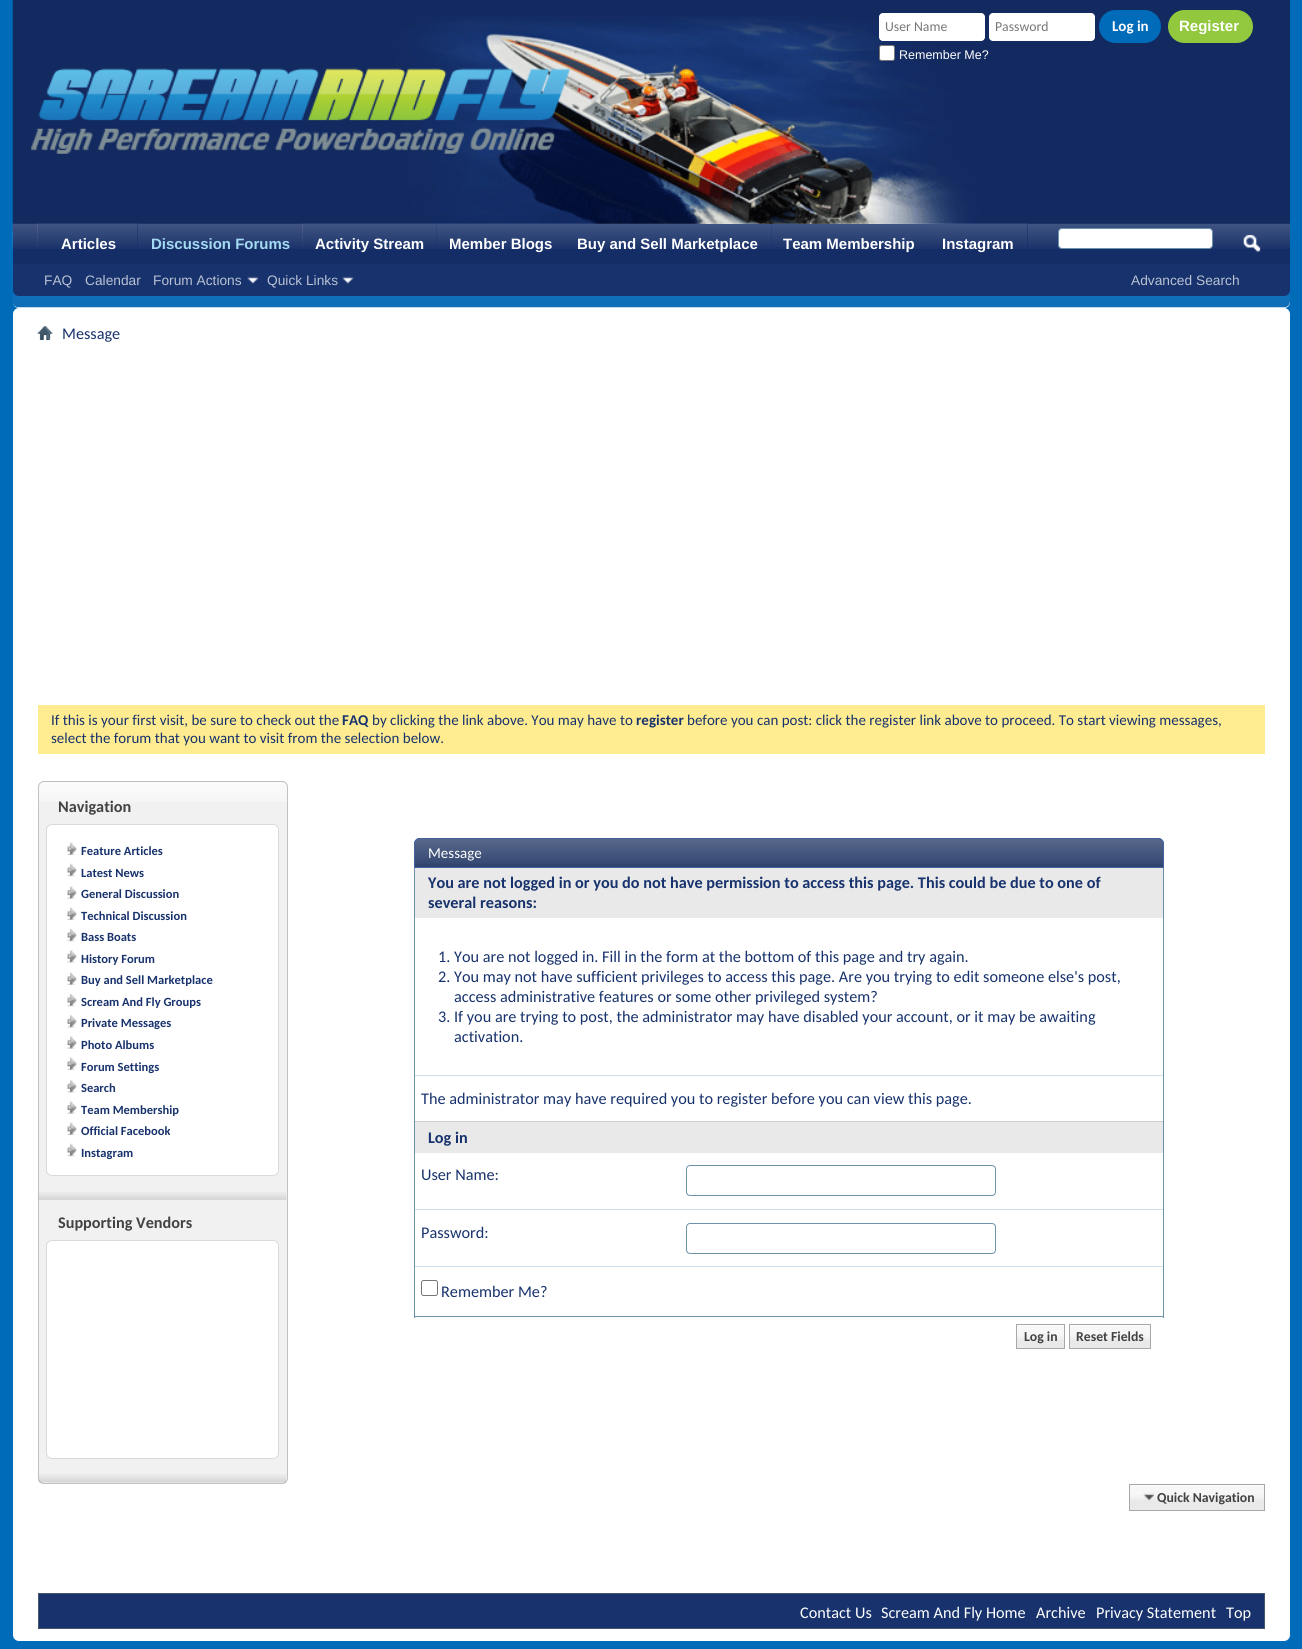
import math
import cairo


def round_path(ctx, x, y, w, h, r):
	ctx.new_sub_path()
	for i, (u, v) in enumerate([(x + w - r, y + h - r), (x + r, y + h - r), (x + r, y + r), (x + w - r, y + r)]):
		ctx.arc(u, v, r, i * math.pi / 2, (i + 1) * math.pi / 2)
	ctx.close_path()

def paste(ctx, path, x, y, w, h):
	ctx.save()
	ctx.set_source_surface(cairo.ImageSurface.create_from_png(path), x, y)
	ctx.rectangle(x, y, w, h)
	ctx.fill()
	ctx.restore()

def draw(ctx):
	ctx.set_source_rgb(0, 0.42, 0.725)
	ctx.paint()
	ctx.set_source_rgb(1, 1, 1)
	ctx.new_path()
	ctx.move_to(13, 0)
	ctx.line_to(1290, 0)
	ctx.line_to(1290, 302)
	ctx.curve_to(1290, 305.5, 1287.5, 308, 1284, 308)
	ctx.line_to(19, 308)
	ctx.curve_to(15.5, 308, 13, 305.5, 13, 302)
	ctx.close_path()
	ctx.fill()
	paste(ctx, 'media/1.png', 12, 0, 1278, 308)
	paste(ctx, 'media/2.png', 388, 16, 647, 208)
	round_path(ctx, 879, 13, 106, 28, 4)
	ctx.fill()
	ctx.select_font_face('Carlito')
	ctx.set_font_size(13.75)
	ctx.set_source_rgb(0.467, 0.467, 0.467)
	ctx.move_to(885, 31)
	ctx.show_text('User Name')
	ctx.set_source_rgb(1, 1, 1)
	round_path(ctx, 989, 13, 106, 28, 4)
	ctx.fill()
	ctx.set_source_rgb(0.467, 0.467, 0.467)
	ctx.move_to(995, 31)
	ctx.show_text('Password')
	ctx.set_source_rgb(0, 0.42, 0.725)
	round_path(ctx, 1099, 10, 62, 33, 16.5)
	ctx.fill()
	ctx.select_font_face('Carlito', cairo.FONT_SLANT_NORMAL, cairo.FONT_WEIGHT_BOLD)
	ctx.set_font_size(15)
	ctx.set_source_rgb(1, 1, 1)
	ctx.move_to(1112, 31)
	ctx.show_text('Log in')
	round_path(ctx, 879.5, 45.5, 15, 15, 2)
	ctx.fill_preserve()
	ctx.set_source_rgb(0.463, 0.463, 0.463)
	ctx.set_line_width(1)
	ctx.stroke()
	ctx.select_font_face('Liberation Sans')
	ctx.set_font_size(12.5)
	ctx.set_source_rgb(1, 1, 1)
	ctx.move_to(899, 59)
	ctx.show_text('Remember Me?')
	ctx.set_source_rgb(0.573, 0.784, 0.239)
	round_path(ctx, 1168, 10, 85, 33, 16.5)
	ctx.fill()
	ctx.select_font_face('Liberation Sans', cairo.FONT_SLANT_NORMAL, cairo.FONT_WEIGHT_BOLD)
	ctx.set_font_size(15)
	ctx.set_source_rgb(1, 1, 1)
	ctx.move_to(1179, 31)
	ctx.show_text('Register')
	paste(ctx, 'media/3.png', 31, 68, 539, 86)
	ctx.set_source_rgb(0.09, 0.196, 0.424)
	ctx.new_path()
	ctx.move_to(13, 224)
	ctx.line_to(1290, 224)
	ctx.line_to(1290, 290)
	ctx.curve_to(1290, 293.5, 1287.5, 296, 1284, 296)
	ctx.line_to(19, 296)
	ctx.curve_to(15.5, 296, 13, 293.5, 13, 290)
	ctx.close_path()
	ctx.fill()
	ctx.set_source_rgb(0.082, 0.176, 0.4)
	ctx.rectangle(13, 224, 1277, 40)
	ctx.fill()
	paste(ctx, 'media/4.png', 12, 223, 1278, 26)
	ctx.rectangle(38, 224, 100, 25)
	ctx.fill()
	paste(ctx, 'media/5.png', 37, 223, 101, 26)
	ctx.set_source_rgb(1, 1, 1)
	ctx.move_to(61, 249)
	ctx.show_text('Articles')
	ctx.set_source_rgb(0.643, 0.859, 0.949)
	ctx.move_to(151, 249)
	ctx.show_text('Discussion Forums')
	ctx.set_source_rgb(0.082, 0.176, 0.4)
	ctx.rectangle(303, 224, 725, 25)
	ctx.fill()
	paste(ctx, 'media/6.png', 302, 223, 134, 26)
	ctx.set_source_rgb(1, 1, 1)
	ctx.move_to(315, 249)
	ctx.show_text('Activity Stream')
	paste(ctx, 'media/7.png', 436, 223, 129, 26)
	ctx.move_to(449, 249)
	ctx.show_text('Member Blogs')
	paste(ctx, 'media/8.png', 565, 223, 206, 26)
	ctx.move_to(577, 249)
	ctx.show_text('Buy and Sell Marketplace')
	paste(ctx, 'media/9.png', 771, 223, 157, 26)
	ctx.move_to(783, 249)
	ctx.show_text('Team Membership')
	paste(ctx, 'media/10.png', 927, 223, 101, 26)
	ctx.move_to(942, 249)
	ctx.show_text('Instagram')
	ctx.select_font_face('Liberation Sans')
	ctx.set_font_size(13.75)
	ctx.set_source_rgb(0.725, 0.761, 0.827)
	for x, y, s in [
		(44, 285, 'FAQ'),
		(85, 285, 'Calendar'),
		(153, 285, 'Forum Actions'),
	]:
		ctx.move_to(x, y)
		ctx.show_text(s)
	paste(ctx, 'media/11.png', 247, 276, 12, 8)
	ctx.move_to(267, 285)
	ctx.show_text('Quick Links')
	paste(ctx, 'media/12.png', 342, 276, 12, 8)
	ctx.set_source_rgb(1, 1, 1)
	round_path(ctx, 1058.5, 228.5, 154, 20, 3.5)
	ctx.fill_preserve()
	ctx.set_source_rgb(0.42, 0.569, 0.671)
	ctx.stroke()
	paste(ctx, 'media/13.png', 1243, 234, 18, 19)
	ctx.set_source_rgb(0.725, 0.761, 0.827)
	ctx.move_to(1131, 285)
	ctx.show_text('Advanced Search')
	ctx.set_source_rgb(1, 1, 1)
	round_path(ctx, 13, 308, 1277, 1333, 6)
	ctx.fill()
	paste(ctx, 'media/14.png', 37, 326, 16, 14)
	ctx.select_font_face('Carlito')
	ctx.set_font_size(16.25)
	ctx.set_source_rgb(0.09, 0.196, 0.424)
	ctx.move_to(62, 339)
	ctx.show_text('Message')
	ctx.set_source_rgb(1, 0.922, 0.565)
	ctx.rectangle(38, 705, 1227, 49)
	ctx.fill()
	ctx.set_font_size(15)
	ctx.set_source_rgb(0.09, 0.196, 0.424)
	ctx.move_to(51, 725)
	ctx.show_text('If this is your first visit, be sure to check out the')
	ctx.select_font_face('Carlito', cairo.FONT_SLANT_NORMAL, cairo.FONT_WEIGHT_BOLD)
	ctx.move_to(342, 725)
	ctx.show_text('FAQ')
	ctx.select_font_face('Carlito')
	ctx.move_to(372, 725)
	ctx.show_text('by clicking the link above. You may have to')
	ctx.select_font_face('Carlito', cairo.FONT_SLANT_NORMAL, cairo.FONT_WEIGHT_BOLD)
	ctx.move_to(636, 725)
	ctx.show_text('register')
	ctx.select_font_face('Carlito')
	ctx.move_to(687, 725)
	ctx.show_text('before you can post: click the register link above to proceed. To start viewing messages,')
	ctx.move_to(51, 743)
	ctx.show_text('select the forum that you want to visit from the selection below.')
	ctx.set_source_rgb(0.945, 0.945, 0.945)
	round_path(ctx, 38, 781, 250, 703, 6)
	ctx.fill()
	paste(ctx, 'media/15.png', 38, 782, 249, 20)
	round_path(ctx, 38.5, 781.5, 249, 702, 5.5)
	ctx.set_source_rgb(0.757, 0.757, 0.757)
	ctx.stroke()
	ctx.select_font_face('Carlito', cairo.FONT_SLANT_NORMAL, cairo.FONT_WEIGHT_BOLD)
	ctx.set_font_size(16.25)
	ctx.set_source_rgb(0.259, 0.259, 0.259)
	ctx.move_to(58, 812)
	ctx.show_text('Navigation')
	ctx.set_source_rgb(1, 1, 1)
	round_path(ctx, 46.5, 824.5, 232, 351, 5.5)
	ctx.fill_preserve()
	ctx.set_source_rgb(0.855, 0.855, 0.855)
	ctx.stroke()
	ctx.set_source_rgb(1, 1, 1)
	round_path(ctx, 48, 825, 230, 350, 6)
	ctx.fill()
	ctx.rectangle(274, 825, 1, 1)
	ctx.fill()
	paste(ctx, 'media/16.png', 67, 842, 10, 13)
	ctx.set_font_size(12.5)
	ctx.set_source_rgb(0.09, 0.196, 0.424)
	ctx.move_to(81, 855)
	ctx.show_text('Feature Articles')
	paste(ctx, 'media/17.png', 67, 863, 10, 14)
	ctx.move_to(81, 877)
	ctx.show_text('Latest News')
	paste(ctx, 'media/18.png', 67, 886, 10, 13)
	ctx.move_to(81, 898)
	ctx.show_text('General Discussion')
	paste(ctx, 'media/16.png', 67, 907, 10, 13)
	ctx.move_to(81, 920)
	ctx.show_text('Technical Discussion')
	paste(ctx, 'media/17.png', 67, 928, 10, 14)
	ctx.move_to(81, 941)
	ctx.show_text('Bass Boats')
	paste(ctx, 'media/19.png', 67, 950, 10, 13)
	ctx.move_to(81, 963)
	ctx.show_text('History Forum')
	paste(ctx, 'media/16.png', 67, 972, 10, 13)
	ctx.move_to(81, 984)
	ctx.show_text('Buy and Sell Marketplace')
	paste(ctx, 'media/17.png', 67, 993, 10, 14)
	ctx.move_to(81, 1006)
	ctx.show_text('Scream And Fly Groups')
	paste(ctx, 'media/19.png', 67, 1015, 10, 13)
	ctx.move_to(81, 1027)
	ctx.show_text('Private Messages')
	paste(ctx, 'media/18.png', 67, 1036, 10, 13)
	ctx.move_to(81, 1049)
	ctx.show_text('Photo Albums')
	paste(ctx, 'media/16.png', 67, 1057, 10, 13)
	ctx.move_to(81, 1071)
	ctx.show_text('Forum Settings')
	paste(ctx, 'media/19.png', 67, 1080, 10, 13)
	ctx.move_to(81, 1092)
	ctx.show_text('Search')
	paste(ctx, 'media/18.png', 67, 1101, 10, 13)
	ctx.move_to(81, 1114)
	ctx.show_text('Team Membership')
	paste(ctx, 'media/16.png', 67, 1122, 10, 13)
	ctx.move_to(81, 1135)
	ctx.show_text('Official Facebook')
	paste(ctx, 'media/17.png', 67, 1143, 10, 14)
	ctx.move_to(81, 1157)
	ctx.show_text('Instagram')
	paste(ctx, 'media/20.png', 38, 1192, 249, 8)
	ctx.set_font_size(16.25)
	ctx.set_source_rgb(0.259, 0.259, 0.259)
	ctx.move_to(58, 1228)
	ctx.show_text('Supporting Vendors')
	ctx.set_source_rgb(1, 1, 1)
	round_path(ctx, 46.5, 1240.5, 232, 218, 5.5)
	ctx.fill_preserve()
	ctx.set_source_rgb(0.855, 0.855, 0.855)
	ctx.stroke()
	ctx.set_source_rgb(1, 1, 1)
	round_path(ctx, 48, 1241, 230, 217, 6)
	ctx.fill()
	ctx.rectangle(274, 1241, 1, 1)
	ctx.fill()
	paste(ctx, 'media/21.png', 38, 1474, 249, 9)
	ctx.set_source_rgb(0.188, 0.267, 0.435)
	ctx.new_path()
	ctx.move_to(420, 838)
	ctx.line_to(1158, 838)
	ctx.curve_to(1161.5, 838, 1164, 840.5, 1164, 844)
	ctx.line_to(1164, 868)
	ctx.line_to(414, 868)
	ctx.line_to(414, 844)
	ctx.curve_to(414, 840.5, 416.5, 838, 420, 838)
	ctx.close_path()
	ctx.fill()
	paste(ctx, 'media/22.png', 414, 838, 750, 26)
	ctx.new_path()
	ctx.move_to(420, 838.5)
	ctx.line_to(1158, 838.5)
	ctx.curve_to(1161, 838.5, 1163.5, 841, 1163.5, 844)
	ctx.line_to(1163.5, 867.5)
	ctx.line_to(414.5, 867.5)
	ctx.line_to(414.5, 844)
	ctx.curve_to(414.5, 841, 417, 838.5, 420, 838.5)
	ctx.close_path()
	ctx.set_source_rgb(0.271, 0.384, 0.624)
	ctx.stroke()
	ctx.select_font_face('Carlito')
	ctx.set_font_size(15)
	ctx.set_source_rgb(1, 1, 1)
	ctx.move_to(428, 858)
	ctx.show_text('Message')
	ctx.set_source_rgb(0.42, 0.569, 0.671)
	ctx.rectangle(1163, 868, 1, 450)
	ctx.rectangle(414, 1316, 750, 1)
	ctx.rectangle(414, 868, 1, 450)
	ctx.fill()
	ctx.set_source_rgb(0.914, 0.914, 0.914)
	ctx.rectangle(415, 868, 748, 50)
	ctx.fill()
	ctx.select_font_face('Carlito', cairo.FONT_SLANT_NORMAL, cairo.FONT_WEIGHT_BOLD)
	ctx.set_font_size(16.25)
	ctx.set_source_rgb(0.09, 0.196, 0.424)
	ctx.move_to(428, 888)
	ctx.show_text('You are not logged in or you do not have permission to access this page. This could be due to one of')
	ctx.move_to(428, 908)
	ctx.show_text('several reasons:')
	ctx.select_font_face('Carlito')
	for x, y, s in [
		(438, 962, '1. You are not logged in. Fill in the form at the bottom of this page and try again.'),
		(438, 982, '2. You may not have sufficient privileges to access this page. Are you trying to edit someone else\'s post,'),
		(454, 1002, 'access administrative features or some other privileged system?'),
		(438, 1022, '3. If you are trying to post, the administrator may have disabled your account, or it may be awaiting'),
		(454, 1042, 'activation.'),
	]:
		ctx.move_to(x, y)
		ctx.show_text(s)
	ctx.set_source_rgb(0.808, 0.875, 0.922)
	ctx.rectangle(415, 1075, 748, 1)
	ctx.fill()
	ctx.set_source_rgb(0.09, 0.196, 0.424)
	ctx.move_to(421, 1104)
	ctx.show_text('The administrator may have required you to register before you can view this page.')
	ctx.set_source_rgb(0.914, 0.914, 0.914)
	ctx.rectangle(415, 1122, 748, 31)
	ctx.fill()
	ctx.set_source_rgb(0.808, 0.808, 0.808)
	ctx.rectangle(415, 1121, 748, 1)
	ctx.fill()
	ctx.select_font_face('Carlito', cairo.FONT_SLANT_NORMAL, cairo.FONT_WEIGHT_BOLD)
	ctx.set_source_rgb(0.09, 0.196, 0.424)
	ctx.move_to(428, 1143)
	ctx.show_text('Log in')
	ctx.select_font_face('Carlito')
	ctx.move_to(421, 1180)
	ctx.show_text('User Name:')
	round_path(ctx, 686.5, 1165.5, 309, 30, 3.5)
	ctx.set_source_rgb(0.42, 0.569, 0.671)
	ctx.stroke()
	ctx.set_source_rgb(0.808, 0.875, 0.922)
	ctx.rectangle(415, 1209, 748, 1)
	ctx.fill()
	ctx.set_source_rgb(0.09, 0.196, 0.424)
	ctx.move_to(421, 1238)
	ctx.show_text('Password:')
	round_path(ctx, 686.5, 1223.5, 309, 30, 3.5)
	ctx.set_source_rgb(0.42, 0.569, 0.671)
	ctx.stroke()
	ctx.set_source_rgb(0.808, 0.875, 0.922)
	ctx.rectangle(415, 1266, 748, 1)
	ctx.fill()
	round_path(ctx, 421.5, 1280.5, 16, 15, 2)
	ctx.set_source_rgb(0.463, 0.463, 0.463)
	ctx.stroke()
	ctx.set_source_rgb(0.09, 0.196, 0.424)
	ctx.move_to(441, 1297)
	ctx.show_text('Remember Me?')
	ctx.set_source_rgb(0.914, 0.914, 0.914)
	ctx.rectangle(1017, 1325, 47, 23)
	ctx.fill()
	paste(ctx, 'media/23.png', 1017, 1325, 47, 15)
	ctx.rectangle(1016.5, 1324.5, 48, 24)
	ctx.set_source_rgb(0.659, 0.659, 0.659)
	ctx.stroke()
	ctx.select_font_face('Carlito', cairo.FONT_SLANT_NORMAL, cairo.FONT_WEIGHT_BOLD)
	ctx.set_font_size(13.75)
	ctx.set_source_rgb(0.259, 0.259, 0.259)
	ctx.move_to(1024, 1341)
	ctx.show_text('Log in')
	ctx.set_source_rgb(0.914, 0.914, 0.914)
	ctx.rectangle(1070, 1325, 80, 23)
	ctx.fill()
	paste(ctx, 'media/24.png', 1070, 1325, 80, 15)
	ctx.rectangle(1069.5, 1324.5, 81, 24)
	ctx.set_source_rgb(0.659, 0.659, 0.659)
	ctx.stroke()
	ctx.set_source_rgb(0.259, 0.259, 0.259)
	ctx.move_to(1076, 1341)
	ctx.show_text('Reset Fields')
	ctx.set_source_rgb(0.914, 0.914, 0.914)
	ctx.rectangle(1130, 1485, 134, 25)
	ctx.fill()
	paste(ctx, 'media/25.png', 1130, 1485, 134, 15)
	ctx.rectangle(1129.5, 1484.5, 135, 26)
	ctx.set_source_rgb(0.659, 0.659, 0.659)
	ctx.stroke()
	paste(ctx, 'media/26.png', 1143, 1493, 12, 8)
	ctx.set_source_rgb(0.259, 0.259, 0.259)
	ctx.move_to(1157, 1502)
	ctx.show_text('Quick Navigation')
	ctx.set_source_rgb(0.09, 0.196, 0.424)
	ctx.rectangle(38.5, 1593.5, 1226, 35)
	ctx.fill_preserve()
	ctx.set_source_rgb(0.259, 0.341, 0.412)
	ctx.stroke()
	ctx.select_font_face('Carlito')
	ctx.set_font_size(16.25)
	ctx.set_source_rgb(1, 1, 1)
	for x, y, s in [
		(800, 1618, 'Contact Us'),
		(881, 1618, 'Scream And Fly Home'),
		(1036, 1618, 'Archive'),
		(1096, 1618, 'Privacy Statement'),
		(1226, 1618, 'Top'),
	]:
		ctx.move_to(x, y)
		ctx.show_text(s)


surface = cairo.ImageSurface(cairo.FORMAT_RGB24, 1302, 1649)
ctx = cairo.Context(surface)
options = cairo.FontOptions()
options.set_hint_metrics(cairo.HINT_METRICS_OFF)
options.set_hint_style(cairo.HINT_STYLE_NONE)
ctx.set_font_options(options)
ctx.set_miter_limit(4)
draw(ctx)
surface.write_to_png('image.png')
